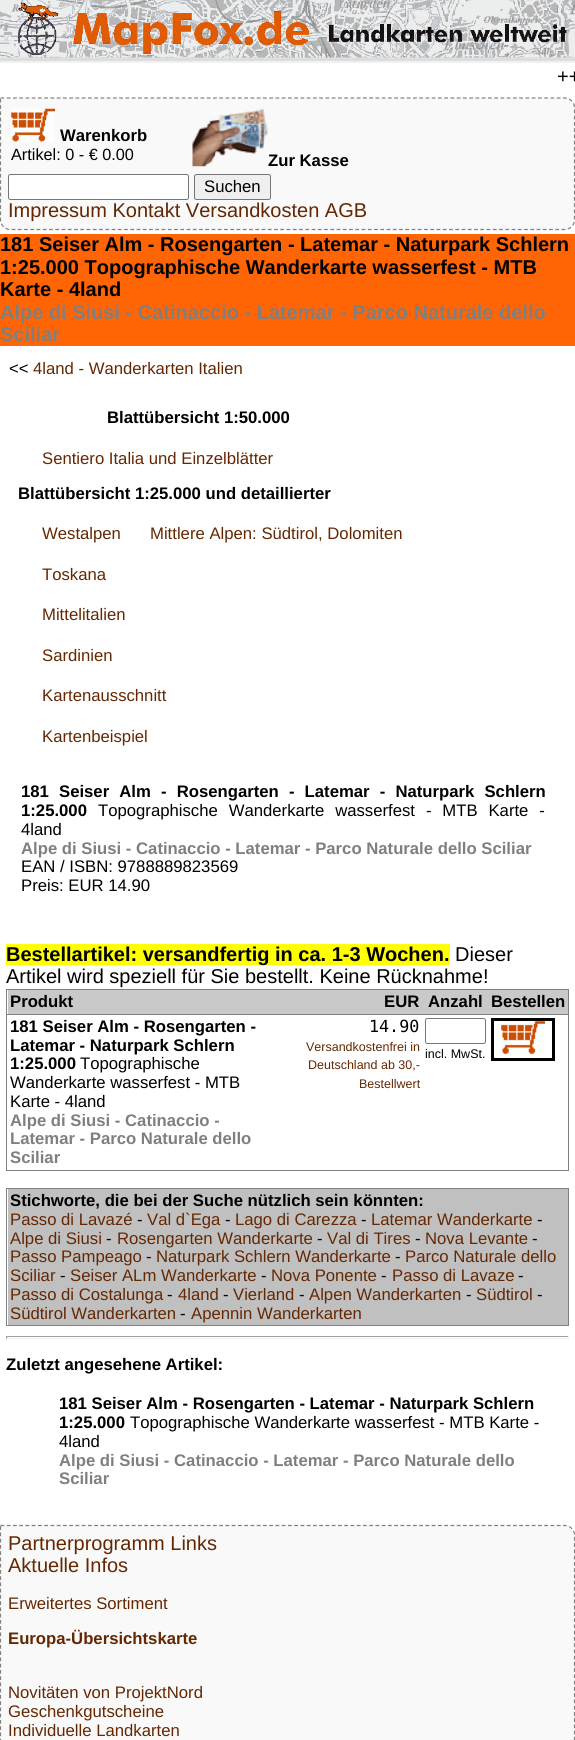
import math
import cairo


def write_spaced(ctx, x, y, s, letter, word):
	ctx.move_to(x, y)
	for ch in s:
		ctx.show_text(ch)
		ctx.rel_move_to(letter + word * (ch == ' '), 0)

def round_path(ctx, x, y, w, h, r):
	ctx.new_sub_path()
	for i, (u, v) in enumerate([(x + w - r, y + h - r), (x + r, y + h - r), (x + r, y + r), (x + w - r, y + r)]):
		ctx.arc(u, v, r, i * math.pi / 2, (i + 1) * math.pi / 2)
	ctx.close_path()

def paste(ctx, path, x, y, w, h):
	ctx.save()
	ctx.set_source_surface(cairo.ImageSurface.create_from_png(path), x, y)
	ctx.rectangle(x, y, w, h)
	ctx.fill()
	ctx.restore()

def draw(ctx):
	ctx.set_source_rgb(1, 1, 1)
	ctx.paint()
	ctx.set_source_rgb(0.945, 0.945, 0.945)
	ctx.rectangle(0, 61, 575, 2)
	ctx.fill()
	ctx.set_source_rgb(0.867, 0.867, 0.867)
	ctx.rectangle(0, 57, 575, 4)
	ctx.fill()
	paste(ctx, 'media/1.png', 0, 0, 575, 58)
	ctx.select_font_face('Liberation Sans')
	ctx.set_font_size(20)
	ctx.set_source_rgb(0, 0, 0)
	ctx.move_to(557, 83)
	ctx.show_text('++')
	ctx.set_source_rgb(0.976, 0.976, 0.976)
	ctx.new_path()
	ctx.move_to(0, 98)
	ctx.line_to(565, 98)
	ctx.curve_to(570.5, 98, 575, 102.5, 575, 108)
	ctx.line_to(575, 220)
	ctx.curve_to(575, 225.5, 570.5, 230, 565, 230)
	ctx.line_to(10, 230)
	ctx.curve_to(4.5, 230, 0, 225.5, 0, 220)
	ctx.close_path()
	ctx.fill()
	ctx.new_path()
	ctx.move_to(0.5, 98)
	ctx.line_to(565, 98)
	ctx.curve_to(570, 98, 574.5, 102.5, 574.5, 107.5)
	ctx.line_to(574.5, 220)
	ctx.curve_to(574.5, 225, 570, 229.5, 565, 229.5)
	ctx.line_to(10, 229.5)
	ctx.curve_to(5, 229.5, 0.5, 225, 0.5, 220)
	ctx.close_path()
	ctx.set_source_rgb(0.502, 0.502, 0.502)
	ctx.set_line_width(1.2)
	ctx.set_dash([3.75, 2.5])
	ctx.stroke()
	paste(ctx, 'media/2.png', 11, 108, 44, 34)
	ctx.select_font_face('Liberation Sans', cairo.FONT_SLANT_NORMAL, cairo.FONT_WEIGHT_BOLD)
	ctx.set_font_size(16.7)
	ctx.set_source_rgb(0, 0, 0)
	ctx.move_to(60, 141)
	ctx.show_text('Warenkorb')
	ctx.select_font_face('Liberation Sans')
	ctx.set_font_size(16.25)
	ctx.move_to(11, 160)
	ctx.show_text('Artikel: 0 - € 0.00')
	paste(ctx, 'media/3.png', 192, 108, 76, 59)
	ctx.select_font_face('Liberation Sans', cairo.FONT_SLANT_NORMAL, cairo.FONT_WEIGHT_BOLD)
	ctx.set_font_size(16.7)
	ctx.move_to(268, 166)
	ctx.show_text('Zur Kasse')
	ctx.set_source_rgb(1, 1, 1)
	round_path(ctx, 8.5, 174.5, 180, 25, 2)
	ctx.fill_preserve()
	ctx.set_source_rgb(0.463, 0.463, 0.463)
	ctx.set_line_width(1)
	ctx.set_dash([])
	ctx.stroke()
	ctx.set_source_rgb(0.937, 0.937, 0.937)
	round_path(ctx, 194.5, 174.5, 76, 25, 2)
	ctx.fill_preserve()
	ctx.set_source_rgb(0.463, 0.463, 0.463)
	ctx.stroke()
	ctx.select_font_face('Liberation Sans')
	ctx.set_source_rgb(0, 0, 0)
	ctx.move_to(204, 192)
	ctx.show_text('Suchen')
	ctx.set_font_size(20)
	ctx.set_source_rgb(0.392, 0.153, 0.008)
	ctx.move_to(8, 217)
	ctx.show_text('Impressum Kontakt Versandkosten AGB')
	ctx.set_source_rgb(1, 0.392, 0.02)
	ctx.rectangle(0, 234, 575, 112)
	ctx.fill()
	ctx.select_font_face('Liberation Sans', cairo.FONT_SLANT_NORMAL, cairo.FONT_WEIGHT_BOLD)
	ctx.set_source_rgb(0, 0, 0)
	for x, y, s in [
		(0, 251, '181 Seiser Alm - Rosengarten - Latemar - Naturpark Schlern'),
		(0, 274, '1:25.000 Topographische Wanderkarte wasserfest - MTB'),
		(0, 296, 'Karte - 4land'),
	]:
		ctx.move_to(x, y)
		ctx.show_text(s)
	ctx.set_source_rgb(0.498, 0.498, 0.498)
	ctx.move_to(0, 319)
	ctx.show_text('Alpe di Siusi - Catinaccio - Latemar - Parco Naturale dello')
	ctx.move_to(0, 341)
	ctx.show_text('Sciliar')
	ctx.select_font_face('Liberation Sans')
	ctx.set_font_size(16.7)
	ctx.set_source_rgb(0, 0, 0)
	ctx.move_to(9, 374)
	ctx.show_text('<<')
	ctx.set_source_rgb(0.392, 0.153, 0.008)
	ctx.move_to(33, 374)
	ctx.show_text('4land - Wanderkarten Italien')
	ctx.select_font_face('Liberation Sans', cairo.FONT_SLANT_NORMAL, cairo.FONT_WEIGHT_BOLD)
	ctx.set_source_rgb(0, 0, 0)
	ctx.move_to(107, 423)
	ctx.show_text('Blattübersicht 1:50.000')
	ctx.select_font_face('Liberation Sans')
	ctx.set_source_rgb(0.392, 0.153, 0.008)
	ctx.move_to(42, 464)
	ctx.show_text('Sentiero Italia und Einzelblätter')
	ctx.select_font_face('Liberation Sans', cairo.FONT_SLANT_NORMAL, cairo.FONT_WEIGHT_BOLD)
	ctx.set_source_rgb(0, 0, 0)
	ctx.move_to(18, 499)
	ctx.show_text('Blattübersicht 1:25.000 und detaillierter')
	ctx.select_font_face('Liberation Sans')
	ctx.set_source_rgb(0.392, 0.153, 0.008)
	for x, y, s in [
		(42, 539, 'Westalpen'),
		(150, 539, 'Mittlere Alpen: Südtirol, Dolomiten'),
		(42, 580, 'Toskana'),
		(42, 620, 'Mittelitalien'),
		(42, 661, 'Sardinien'),
		(42, 701, 'Kartenausschnitt'),
		(42, 742, 'Kartenbeispiel'),
	]:
		ctx.move_to(x, y)
		ctx.show_text(s)
	ctx.select_font_face('Liberation Sans', cairo.FONT_SLANT_NORMAL, cairo.FONT_WEIGHT_BOLD)
	ctx.set_source_rgb(0, 0, 0)
	write_spaced(ctx, 21, 797, '181 Seiser Alm - Rosengarten - Latemar - Naturpark Schlern', 0, 5.5)
	ctx.move_to(21, 816)
	ctx.show_text('1:25.000')
	ctx.select_font_face('Liberation Sans')
	write_spaced(ctx, 98, 816, 'Topographische Wanderkarte wasserfest - MTB Karte -', 0, 6.25)
	ctx.move_to(21, 835)
	ctx.show_text('4land')
	ctx.select_font_face('Liberation Sans', cairo.FONT_SLANT_NORMAL, cairo.FONT_WEIGHT_BOLD)
	ctx.set_source_rgb(0.498, 0.498, 0.498)
	ctx.move_to(21, 854)
	ctx.show_text('Alpe di Siusi - Catinaccio - Latemar - Parco Naturale dello Sciliar')
	ctx.select_font_face('Liberation Sans')
	ctx.set_source_rgb(0, 0, 0)
	ctx.move_to(21, 872)
	ctx.show_text('EAN / ISBN: 9788889823569')
	ctx.move_to(21, 891)
	ctx.show_text('Preis: EUR 14.90')
	ctx.set_source_rgb(1, 1, 0)
	ctx.rectangle(6, 944, 444, 21)
	ctx.fill()
	ctx.select_font_face('Liberation Sans', cairo.FONT_SLANT_NORMAL, cairo.FONT_WEIGHT_BOLD)
	ctx.set_font_size(20)
	ctx.set_source_rgb(0, 0, 0)
	ctx.move_to(6, 961)
	ctx.show_text('Bestellartikel: versandfertig in ca. 1-3 Wochen.')
	ctx.select_font_face('Liberation Sans')
	ctx.move_to(455, 961)
	ctx.show_text('Dieser')
	ctx.move_to(6, 983)
	ctx.show_text('Artikel wird speziell für Sie bestellt. Keine Rücknahme!')
	ctx.set_source_rgb(0.502, 0.502, 0.502)
	ctx.rectangle(6, 989, 563, 1)
	ctx.rectangle(568, 989, 1, 182)
	ctx.rectangle(6, 1170, 563, 1)
	ctx.rectangle(6, 989, 1, 182)
	ctx.fill()
	ctx.set_source_rgb(0.788, 0.788, 0.788)
	ctx.rectangle(8, 990, 560, 24)
	ctx.fill()
	ctx.select_font_face('Liberation Sans', cairo.FONT_SLANT_NORMAL, cairo.FONT_WEIGHT_BOLD)
	ctx.set_font_size(16.7)
	ctx.set_source_rgb(0, 0, 0)
	for x, y, s in [
		(10, 1007, 'Produkt'),
		(384, 1007, 'EUR'),
		(428, 1007, 'Anzahl'),
		(491, 1007, 'Bestellen'),
	]:
		ctx.move_to(x, y)
		ctx.show_text(s)
	ctx.set_source_rgb(0.502, 0.502, 0.502)
	ctx.rectangle(6, 1014, 563, 1)
	ctx.fill()
	ctx.rectangle(492.5, 1019.5, 61, 40)
	ctx.set_source_rgb(0, 0, 0)
	ctx.set_line_width(3)
	ctx.stroke()
	paste(ctx, 'media/4.png', 501, 1021, 44, 33)
	for x, y, s in [
		(10, 1032, '181 Seiser Alm - Rosengarten -'),
		(10, 1051, 'Latemar - Naturpark Schlern'),
		(10, 1069, '1:25.000'),
	]:
		ctx.move_to(x, y)
		ctx.show_text(s)
	ctx.select_font_face('Liberation Sans')
	for x, y, s in [
		(80, 1069, 'Topographische'),
		(10, 1088, 'Wanderkarte wasserfest - MTB'),
		(10, 1107, 'Karte - 4land'),
	]:
		ctx.move_to(x, y)
		ctx.show_text(s)
	ctx.select_font_face('Liberation Sans', cairo.FONT_SLANT_NORMAL, cairo.FONT_WEIGHT_BOLD)
	ctx.set_source_rgb(0.498, 0.498, 0.498)
	for x, y, s in [
		(10, 1126, 'Alpe di Siusi - Catinaccio -'),
		(10, 1144, 'Latemar - Parco Naturale dello'),
		(10, 1163, 'Sciliar'),
	]:
		ctx.move_to(x, y)
		ctx.show_text(s)
	ctx.select_font_face('DejaVu Sans Mono')
	ctx.set_source_rgb(0, 0, 0)
	ctx.move_to(369, 1032)
	ctx.show_text('14.90')
	ctx.select_font_face('Liberation Sans')
	ctx.set_font_size(12.5)
	ctx.set_source_rgb(0.392, 0.153, 0.008)
	for x, y, s in [
		(306, 1051, 'Versandkostenfrei in'),
		(308, 1069, 'Deutschland ab 30,-'),
		(359, 1088, 'Bestellwert'),
	]:
		ctx.move_to(x, y)
		ctx.show_text(s)
	round_path(ctx, 425.5, 1018.5, 60, 25, 2)
	ctx.set_source_rgb(0.463, 0.463, 0.463)
	ctx.set_line_width(1)
	ctx.stroke()
	ctx.set_source_rgb(0, 0, 0)
	ctx.move_to(425, 1058)
	ctx.show_text('incl. MwSt.')
	ctx.set_source_rgb(0.502, 0.502, 0.502)
	ctx.rectangle(6, 1188, 563, 1)
	ctx.rectangle(568, 1188, 1, 138)
	ctx.rectangle(6, 1325, 563, 1)
	ctx.rectangle(6, 1188, 1, 138)
	ctx.fill()
	ctx.set_source_rgb(0.753, 0.753, 0.753)
	ctx.rectangle(8, 1189, 560, 136)
	ctx.fill()
	ctx.select_font_face('Liberation Sans', cairo.FONT_SLANT_NORMAL, cairo.FONT_WEIGHT_BOLD)
	ctx.set_font_size(16.7)
	ctx.set_source_rgb(0, 0, 0)
	ctx.move_to(10, 1206)
	ctx.show_text('Stichworte, die bei der Suche nützlich sein könnten:')
	ctx.select_font_face('Liberation Sans')
	ctx.set_source_rgb(0.392, 0.153, 0.008)
	ctx.move_to(10, 1225)
	ctx.show_text('Passo di Lavazé')
	ctx.set_source_rgb(0, 0, 0)
	ctx.move_to(137, 1225)
	ctx.show_text('-')
	ctx.set_source_rgb(0.392, 0.153, 0.008)
	ctx.move_to(147, 1225)
	ctx.show_text('Val d`Ega')
	ctx.set_source_rgb(0, 0, 0)
	ctx.move_to(225, 1225)
	ctx.show_text('-')
	ctx.set_source_rgb(0.392, 0.153, 0.008)
	ctx.move_to(235, 1225)
	ctx.show_text('Lago di Carezza')
	ctx.set_source_rgb(0, 0, 0)
	ctx.move_to(361, 1225)
	ctx.show_text('-')
	ctx.set_source_rgb(0.392, 0.153, 0.008)
	ctx.move_to(371, 1225)
	ctx.show_text('Latemar Wanderkarte')
	ctx.set_source_rgb(0, 0, 0)
	ctx.move_to(537, 1225)
	ctx.show_text('-')
	ctx.set_source_rgb(0.392, 0.153, 0.008)
	ctx.move_to(10, 1244)
	ctx.show_text('Alpe di Siusi')
	ctx.set_source_rgb(0, 0, 0)
	ctx.move_to(106, 1244)
	ctx.show_text('-')
	ctx.set_source_rgb(0.392, 0.153, 0.008)
	ctx.move_to(117, 1244)
	ctx.show_text('Rosengarten Wanderkarte')
	ctx.set_source_rgb(0, 0, 0)
	ctx.move_to(317, 1244)
	ctx.show_text('-')
	ctx.set_source_rgb(0.392, 0.153, 0.008)
	ctx.move_to(327, 1244)
	ctx.show_text('Val di Tires')
	ctx.set_source_rgb(0, 0, 0)
	ctx.move_to(415, 1244)
	ctx.show_text('-')
	ctx.set_source_rgb(0.392, 0.153, 0.008)
	ctx.move_to(425, 1244)
	ctx.show_text('Nova Levante')
	ctx.set_source_rgb(0, 0, 0)
	ctx.move_to(532, 1244)
	ctx.show_text('-')
	ctx.set_source_rgb(0.392, 0.153, 0.008)
	ctx.move_to(10, 1262)
	ctx.show_text('Passo Pampeago')
	ctx.set_source_rgb(0, 0, 0)
	ctx.move_to(146, 1262)
	ctx.show_text('-')
	ctx.set_source_rgb(0.392, 0.153, 0.008)
	ctx.move_to(156, 1262)
	ctx.show_text('Naturpark Schlern Wanderkarte')
	ctx.set_source_rgb(0, 0, 0)
	ctx.move_to(395, 1262)
	ctx.show_text('-')
	ctx.set_source_rgb(0.392, 0.153, 0.008)
	ctx.move_to(405, 1262)
	ctx.show_text('Parco Naturale dello')
	ctx.move_to(10, 1281)
	ctx.show_text('Sciliar')
	ctx.set_source_rgb(0, 0, 0)
	ctx.move_to(60, 1281)
	ctx.show_text('-')
	ctx.set_source_rgb(0.392, 0.153, 0.008)
	ctx.move_to(70, 1281)
	ctx.show_text('Seiser ALm Wanderkarte')
	ctx.set_source_rgb(0, 0, 0)
	ctx.move_to(261, 1281)
	ctx.show_text('-')
	ctx.set_source_rgb(0.392, 0.153, 0.008)
	ctx.move_to(271, 1281)
	ctx.show_text('Nova Ponente')
	ctx.set_source_rgb(0, 0, 0)
	ctx.move_to(381, 1281)
	ctx.show_text('-')
	ctx.set_source_rgb(0.392, 0.153, 0.008)
	ctx.move_to(392, 1281)
	ctx.show_text('Passo di Lavaze')
	ctx.set_source_rgb(0, 0, 0)
	ctx.move_to(518, 1281)
	ctx.show_text('-')
	ctx.set_source_rgb(0.392, 0.153, 0.008)
	ctx.move_to(10, 1300)
	ctx.show_text('Passo di Costalunga')
	ctx.set_source_rgb(0, 0, 0)
	ctx.move_to(167, 1300)
	ctx.show_text('-')
	ctx.set_source_rgb(0.392, 0.153, 0.008)
	ctx.move_to(178, 1300)
	ctx.show_text('4land')
	ctx.set_source_rgb(0, 0, 0)
	ctx.move_to(223, 1300)
	ctx.show_text('-')
	ctx.set_source_rgb(0.392, 0.153, 0.008)
	ctx.move_to(233, 1300)
	ctx.show_text('Vierland')
	ctx.set_source_rgb(0, 0, 0)
	ctx.move_to(299, 1300)
	ctx.show_text('-')
	ctx.set_source_rgb(0.392, 0.153, 0.008)
	ctx.move_to(309, 1300)
	ctx.show_text('Alpen Wanderkarten')
	ctx.set_source_rgb(0, 0, 0)
	ctx.move_to(466, 1300)
	ctx.show_text('-')
	ctx.set_source_rgb(0.392, 0.153, 0.008)
	ctx.move_to(476, 1300)
	ctx.show_text('Südtirol')
	ctx.set_source_rgb(0, 0, 0)
	ctx.move_to(537, 1300)
	ctx.show_text('-')
	ctx.set_source_rgb(0.392, 0.153, 0.008)
	ctx.move_to(10, 1319)
	ctx.show_text('Südtirol Wanderkarten')
	ctx.set_source_rgb(0, 0, 0)
	ctx.move_to(180, 1319)
	ctx.show_text('-')
	ctx.set_source_rgb(0.392, 0.153, 0.008)
	ctx.move_to(191, 1319)
	ctx.show_text('Apennin Wanderkarten')
	ctx.set_source_rgb(0.624, 0.624, 0.624)
	ctx.rectangle(6, 1336, 563, 1)
	ctx.fill()
	ctx.set_source_rgb(0.933, 0.933, 0.933)
	ctx.rectangle(568, 1336, 1, 3)
	ctx.rectangle(6, 1338, 563, 1)
	ctx.fill()
	ctx.set_source_rgb(0.624, 0.624, 0.624)
	ctx.rectangle(6, 1336, 1, 3)
	ctx.fill()
	ctx.select_font_face('Liberation Sans', cairo.FONT_SLANT_NORMAL, cairo.FONT_WEIGHT_BOLD)
	ctx.set_source_rgb(0, 0, 0)
	for x, y, s in [
		(6, 1370, 'Zuletzt angesehene Artikel:'),
		(59, 1409, '181 Seiser Alm - Rosengarten - Latemar - Naturpark Schlern'),
		(59, 1428, '1:25.000'),
	]:
		ctx.move_to(x, y)
		ctx.show_text(s)
	ctx.select_font_face('Liberation Sans')
	ctx.move_to(130, 1428)
	ctx.show_text('Topographische Wanderkarte wasserfest - MTB Karte -')
	ctx.move_to(59, 1447)
	ctx.show_text('4land')
	ctx.select_font_face('Liberation Sans', cairo.FONT_SLANT_NORMAL, cairo.FONT_WEIGHT_BOLD)
	ctx.set_source_rgb(0.498, 0.498, 0.498)
	ctx.move_to(59, 1466)
	ctx.show_text('Alpe di Siusi - Catinaccio - Latemar - Parco Naturale dello')
	ctx.move_to(59, 1484)
	ctx.show_text('Sciliar')
	ctx.set_source_rgb(0.976, 0.976, 0.976)
	ctx.new_path()
	ctx.move_to(0, 1525)
	ctx.line_to(565, 1525)
	ctx.curve_to(570.5, 1525, 575, 1529.5, 575, 1535)
	ctx.line_to(575, 1740)
	ctx.curve_to(575, 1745.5, 570.5, 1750, 565, 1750)
	ctx.line_to(10, 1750)
	ctx.curve_to(4.5, 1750, 0, 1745.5, 0, 1740)
	ctx.close_path()
	ctx.fill()
	ctx.new_path()
	ctx.move_to(0.5, 1525.5)
	ctx.line_to(565, 1525.5)
	ctx.curve_to(570, 1525.5, 574.5, 1530, 574.5, 1535)
	ctx.line_to(574.5, 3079)
	ctx.curve_to(574.5, 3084, 570, 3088, 565, 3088)
	ctx.line_to(10, 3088)
	ctx.curve_to(5, 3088, 0.5, 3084, 0.5, 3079)
	ctx.close_path()
	ctx.set_source_rgb(0.502, 0.502, 0.502)
	ctx.set_line_width(1.2)
	ctx.set_dash([3.75, 2.5])
	ctx.stroke()
	ctx.select_font_face('Liberation Sans')
	ctx.set_font_size(20)
	ctx.set_source_rgb(0.392, 0.153, 0.008)
	ctx.move_to(8, 1550)
	ctx.show_text('Partnerprogramm Links')
	ctx.move_to(8, 1572)
	ctx.show_text('Aktuelle Infos')
	ctx.set_font_size(16.7)
	ctx.move_to(8, 1609)
	ctx.show_text('Erweitertes Sortiment')
	ctx.select_font_face('Liberation Sans', cairo.FONT_SLANT_NORMAL, cairo.FONT_WEIGHT_BOLD)
	ctx.move_to(8, 1644)
	ctx.show_text('Europa-Übersichtskarte')
	ctx.select_font_face('Liberation Sans')
	for x, y, s in [
		(8, 1698, 'Novitäten von ProjektNord'),
		(8, 1717, 'Geschenkgutscheine'),
		(8, 1736, 'Individuelle Landkarten'),
	]:
		ctx.move_to(x, y)
		ctx.show_text(s)


surface = cairo.ImageSurface(cairo.FORMAT_RGB24, 575, 1740)
ctx = cairo.Context(surface)
options = cairo.FontOptions()
options.set_hint_metrics(cairo.HINT_METRICS_OFF)
options.set_hint_style(cairo.HINT_STYLE_NONE)
ctx.set_font_options(options)
ctx.set_miter_limit(4)
draw(ctx)
surface.write_to_png('image.png')
